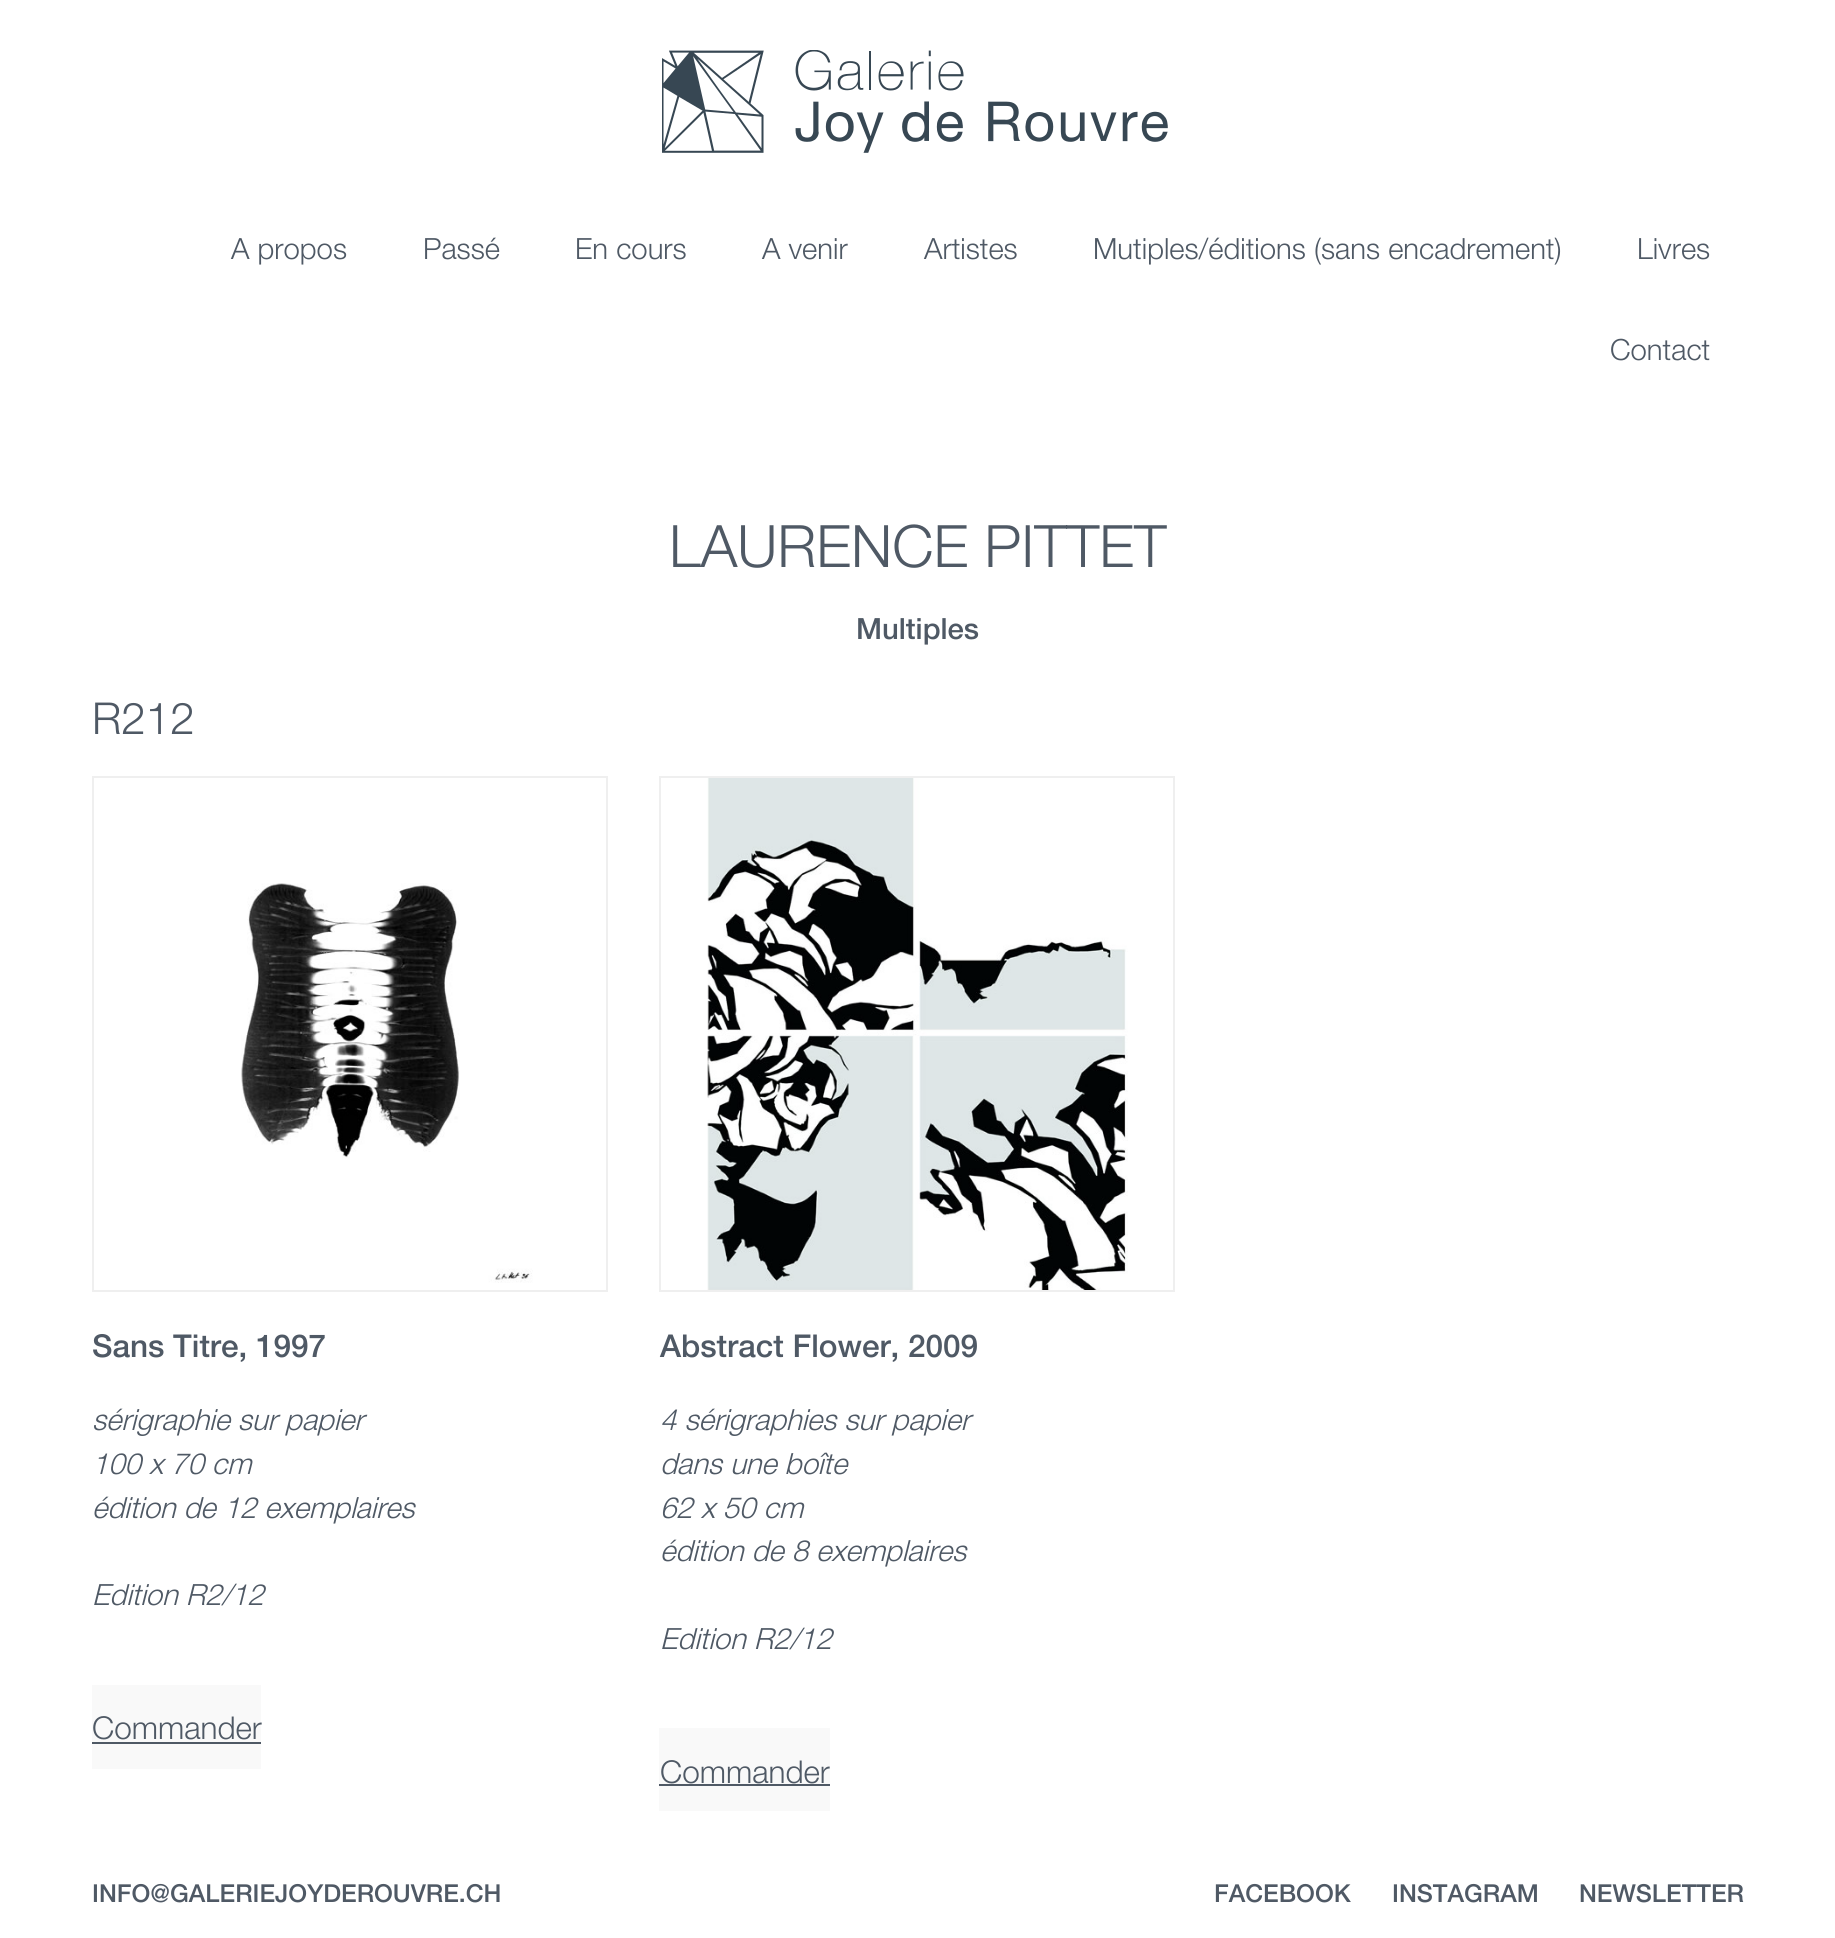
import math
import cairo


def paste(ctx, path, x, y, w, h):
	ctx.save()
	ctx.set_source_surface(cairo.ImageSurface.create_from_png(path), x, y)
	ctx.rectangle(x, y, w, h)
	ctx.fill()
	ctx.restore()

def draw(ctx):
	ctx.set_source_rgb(1, 1, 1)
	ctx.paint()
	paste(ctx, 'media/1.png', 662, 50, 506, 103)
	ctx.select_font_face('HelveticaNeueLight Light')
	ctx.set_font_size(29.25)
	ctx.set_source_rgb(0.31, 0.349, 0.396)
	for x, y, s in [
		(231, 259, 'A propos'),
		(423, 259, 'Passé'),
		(575, 259, 'En cours'),
		(762, 259, 'A venir'),
		(924, 259, 'Artistes'),
		(1093, 259, 'Mutiples/éditions (sans encadrement)'),
		(1637, 259, 'Livres'),
		(1610, 360, 'Contact'),
	]:
		ctx.move_to(x, y)
		ctx.show_text(s)
	ctx.set_font_size(58.5)
	ctx.move_to(669, 567)
	ctx.show_text('LAURENCE PITTET')
	ctx.select_font_face('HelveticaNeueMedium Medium')
	ctx.set_font_size(29.25)
	ctx.move_to(856, 639)
	ctx.show_text('Multiples')
	ctx.select_font_face('HelveticaNeueLight Light')
	ctx.set_font_size(44)
	ctx.move_to(92, 734)
	ctx.show_text('R212')
	paste(ctx, 'media/2.png', 241, 883, 292, 400)
	ctx.rectangle(93, 777, 514, 514)
	ctx.set_source_rgb(0.937, 0.937, 0.937)
	ctx.stroke()
	ctx.select_font_face('HelveticaNeueMedium Medium')
	ctx.set_font_size(31.5)
	ctx.set_source_rgb(0.31, 0.349, 0.396)
	ctx.move_to(92, 1357)
	ctx.show_text('Sans Titre, 1997')
	ctx.select_font_face('HelveticaNeueLight Light', cairo.FONT_SLANT_ITALIC)
	ctx.set_font_size(29.25)
	for x, y, s in [
		(92, 1430, 'sérigraphie sur papier'),
		(92, 1474, '100 x 70 cm'),
		(92, 1518, 'édition de 12 exemplaires'),
		(92, 1605, 'Edition R2/12'),
	]:
		ctx.move_to(x, y)
		ctx.show_text(s)
	ctx.set_source_rgb(0.976, 0.976, 0.976)
	ctx.rectangle(92, 1685, 169, 84)
	ctx.fill()
	ctx.select_font_face('HelveticaNeueLight Light')
	ctx.set_font_size(31.5)
	ctx.set_source_rgb(0.31, 0.349, 0.396)
	ctx.move_to(92, 1739)
	ctx.show_text('Commander')
	ctx.rectangle(92, 1742, 169, 2)
	ctx.fill()
	paste(ctx, 'media/3.png', 707, 778, 421, 512)
	ctx.rectangle(660, 777, 514, 514)
	ctx.set_source_rgb(0.937, 0.937, 0.937)
	ctx.stroke()
	ctx.select_font_face('HelveticaNeueMedium Medium')
	ctx.set_source_rgb(0.31, 0.349, 0.396)
	ctx.move_to(660, 1357)
	ctx.show_text('Abstract Flower, 2009')
	ctx.select_font_face('HelveticaNeueLight Light', cairo.FONT_SLANT_ITALIC)
	ctx.set_font_size(29.25)
	for x, y, s in [
		(660, 1430, '4 sérigraphies sur papier'),
		(660, 1474, 'dans une boîte'),
		(660, 1518, '62 x 50 cm'),
		(660, 1561, 'édition de 8 exemplaires'),
		(660, 1649, 'Edition R2/12'),
	]:
		ctx.move_to(x, y)
		ctx.show_text(s)
	ctx.set_source_rgb(0.976, 0.976, 0.976)
	ctx.rectangle(659, 1728, 171, 83)
	ctx.fill()
	ctx.select_font_face('HelveticaNeueLight Light')
	ctx.set_font_size(31.5)
	ctx.set_source_rgb(0.31, 0.349, 0.396)
	ctx.move_to(660, 1783)
	ctx.show_text('Commander')
	ctx.rectangle(659, 1784, 171, 2)
	ctx.fill()
	ctx.select_font_face('HelveticaNeueMedium Medium')
	ctx.set_font_size(24.75)
	for x, y, s in [
		(92, 1902, 'INFO@GALERIEJOYDEROUVRE.CH'),
		(1214, 1902, 'FACEBOOK'),
		(1392, 1902, 'INSTAGRAM'),
		(1579, 1902, 'NEWSLETTER'),
	]:
		ctx.move_to(x, y)
		ctx.show_text(s)


surface = cairo.ImageSurface(cairo.FORMAT_RGB24, 1835, 1938)
ctx = cairo.Context(surface)
options = cairo.FontOptions()
options.set_hint_metrics(cairo.HINT_METRICS_OFF)
options.set_hint_style(cairo.HINT_STYLE_NONE)
ctx.set_font_options(options)
ctx.set_miter_limit(4)
draw(ctx)
surface.write_to_png('image.png')
